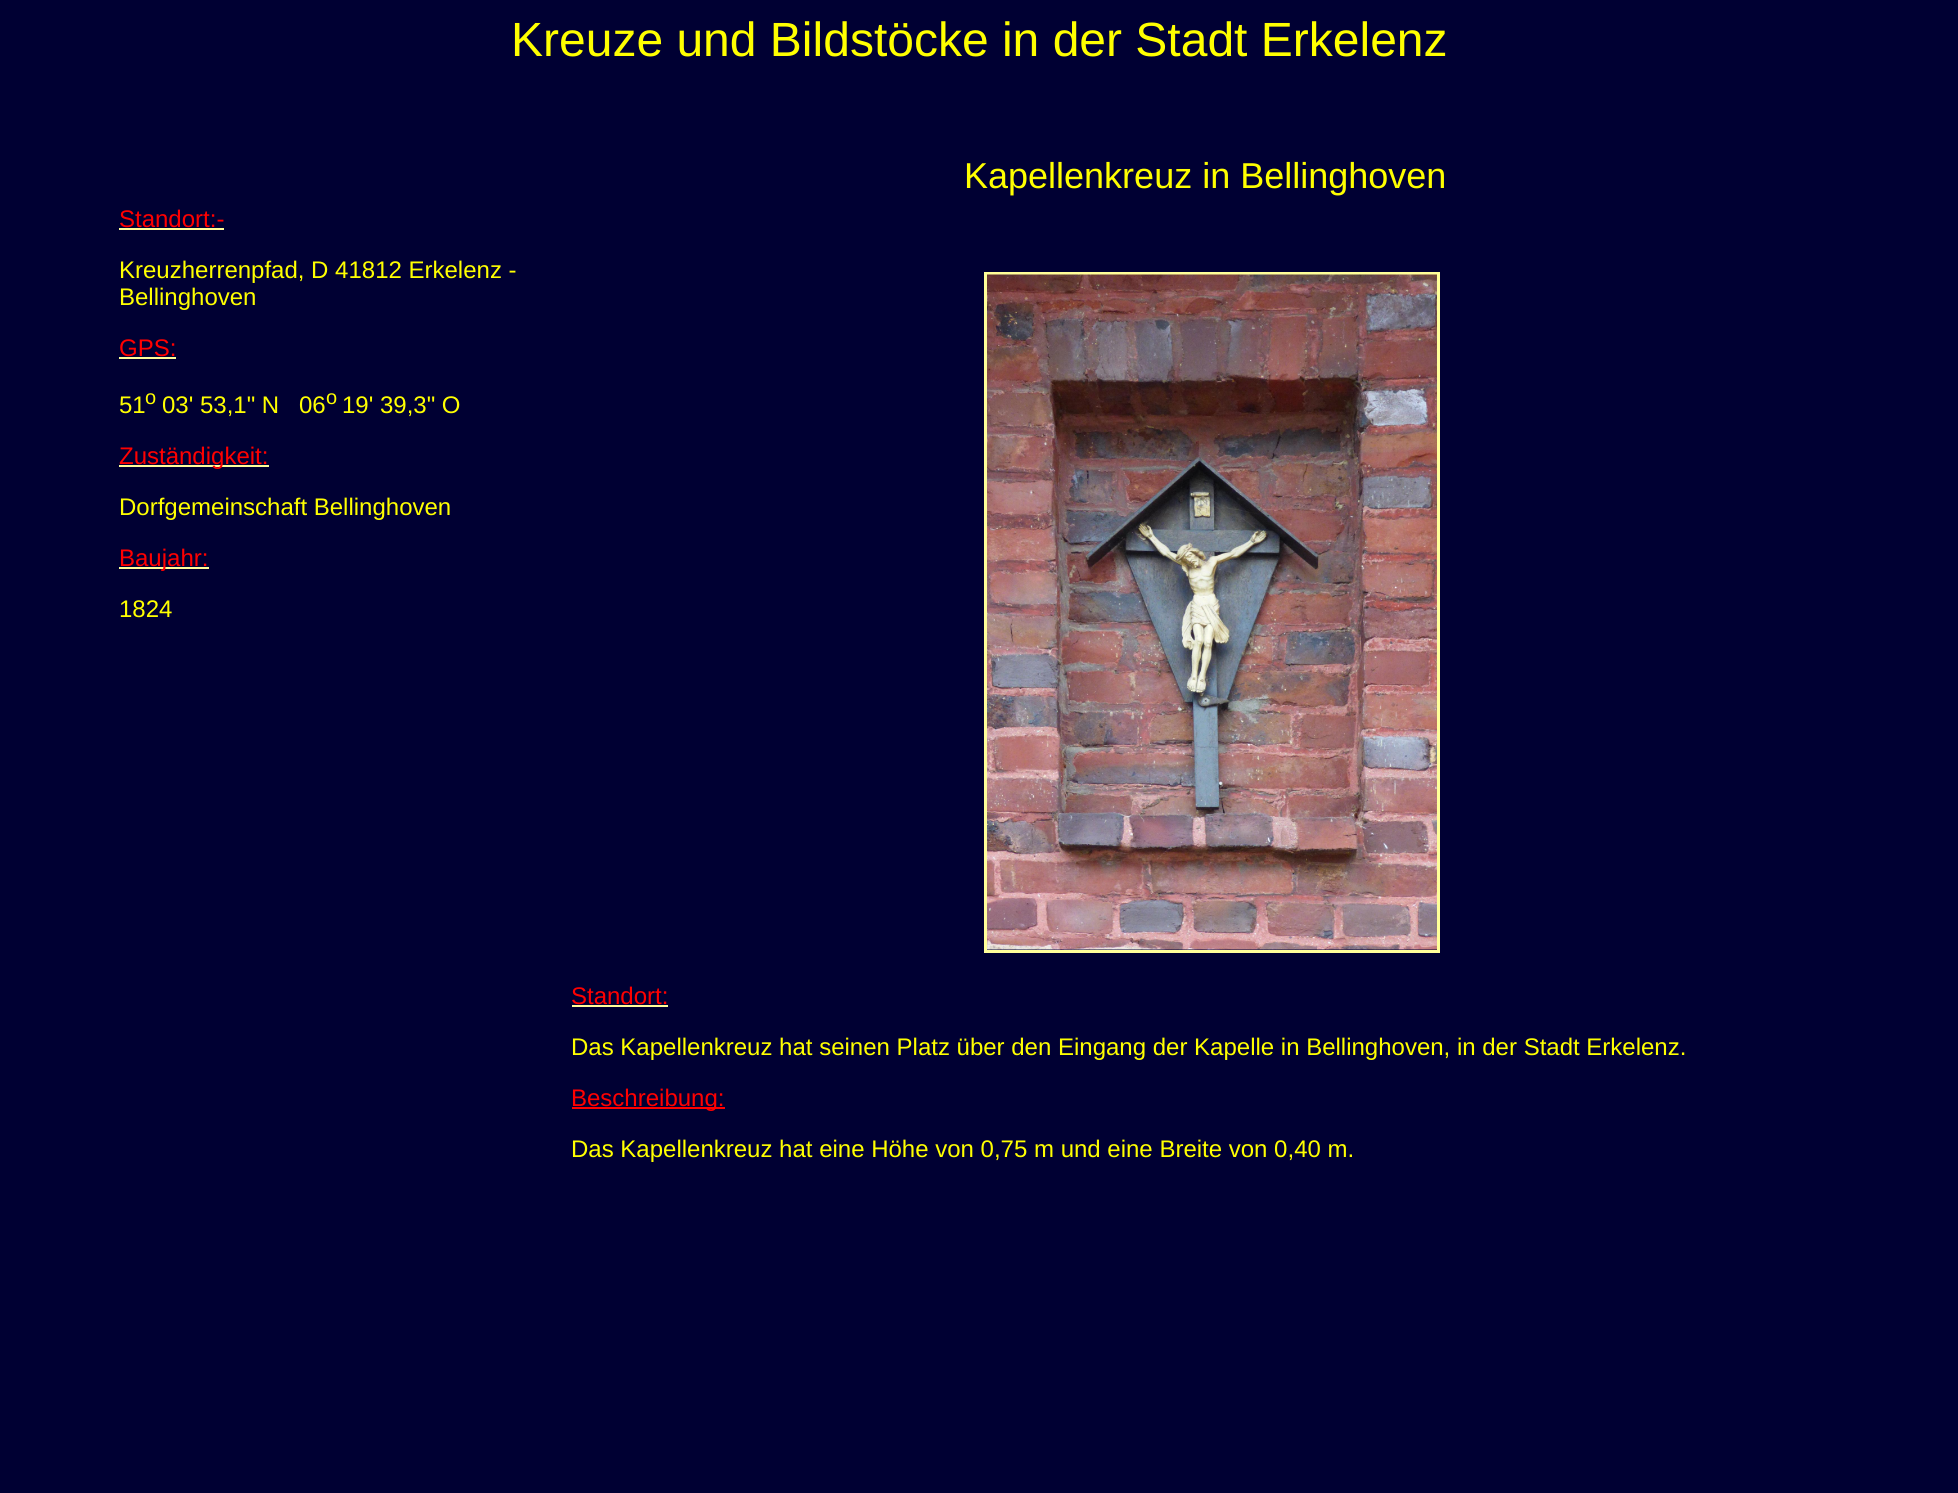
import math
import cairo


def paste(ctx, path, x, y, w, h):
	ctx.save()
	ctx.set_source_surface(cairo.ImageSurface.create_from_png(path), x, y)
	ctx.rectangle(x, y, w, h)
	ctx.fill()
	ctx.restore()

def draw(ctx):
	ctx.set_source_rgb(0, 0, 0.2)
	ctx.paint()
	ctx.select_font_face('Liberation Sans')
	ctx.set_font_size(48)
	ctx.set_source_rgb(1, 1, 0)
	ctx.move_to(511, 56)
	ctx.show_text('Kreuze und Bildstöcke in der Stadt Erkelenz')
	ctx.set_font_size(24)
	ctx.set_source_rgb(1, 0, 0)
	ctx.move_to(119, 227)
	ctx.show_text('Standort:-')
	ctx.set_source_rgb(1, 1, 0.6)
	ctx.rectangle(119, 228, 105, 2)
	ctx.fill()
	ctx.set_source_rgb(1, 1, 0)
	ctx.move_to(119, 278)
	ctx.show_text('Kreuzherrenpfad, D 41812 Erkelenz -')
	ctx.move_to(119, 305)
	ctx.show_text('Bellinghoven')
	ctx.set_source_rgb(1, 0, 0)
	ctx.move_to(119, 356)
	ctx.show_text('GPS:')
	ctx.set_source_rgb(1, 1, 0.6)
	ctx.rectangle(119, 357, 57, 2)
	ctx.fill()
	ctx.set_source_rgb(1, 1, 0)
	ctx.move_to(119, 413)
	ctx.show_text('51')
	ctx.set_font_size(20)
	ctx.move_to(145, 404)
	ctx.show_text('o')
	ctx.set_font_size(24)
	ctx.move_to(162, 413)
	ctx.show_text('03\' 53,1" N')
	ctx.move_to(299, 413)
	ctx.show_text('06')
	ctx.set_font_size(20)
	ctx.move_to(326, 404)
	ctx.show_text('o')
	ctx.set_font_size(24)
	ctx.move_to(342, 413)
	ctx.show_text('19\' 39,3" O')
	ctx.set_source_rgb(1, 1, 0.6)
	ctx.rectangle(119, 465, 150, 2)
	ctx.fill()
	ctx.set_source_rgb(1, 0, 0)
	ctx.move_to(119, 464)
	ctx.show_text('Zuständigkeit:')
	ctx.set_source_rgb(1, 1, 0)
	ctx.move_to(119, 515)
	ctx.show_text('Dorfgemeinschaft Bellinghoven')
	ctx.set_source_rgb(1, 1, 0.6)
	ctx.rectangle(119, 567, 90, 2)
	ctx.fill()
	ctx.set_source_rgb(1, 0, 0)
	ctx.move_to(119, 566)
	ctx.show_text('Baujahr:')
	ctx.set_source_rgb(1, 1, 0)
	ctx.move_to(119, 617)
	ctx.show_text('1824')
	ctx.set_font_size(36)
	ctx.move_to(964, 188)
	ctx.show_text('Kapellenkreuz in Bellinghoven')
	ctx.rectangle(985.5, 273.5, 453, 678)
	ctx.set_source_rgb(1, 1, 0.6)
	ctx.set_line_width(3)
	ctx.stroke()
	paste(ctx, 'media/1.png', 987, 274, 450, 676)
	ctx.set_font_size(24)
	ctx.set_source_rgb(1, 0, 0)
	ctx.move_to(571, 1004)
	ctx.show_text('Standort:')
	ctx.set_source_rgb(1, 1, 0.6)
	ctx.rectangle(572, 1005, 96, 2)
	ctx.fill()
	ctx.set_source_rgb(1, 1, 0)
	ctx.move_to(571, 1055)
	ctx.show_text('Das Kapellenkreuz hat seinen Platz über den Eingang der Kapelle in Bellinghoven, in der Stadt Erkelenz.')
	ctx.set_source_rgb(1, 0, 0)
	ctx.rectangle(572, 1107, 153, 2)
	ctx.fill()
	ctx.move_to(571, 1106)
	ctx.show_text('Beschreibung:')
	ctx.set_source_rgb(1, 1, 0)
	ctx.move_to(571, 1157)
	ctx.show_text('Das Kapellenkreuz hat eine Höhe von 0,75 m und eine Breite von 0,40 m.')


surface = cairo.ImageSurface(cairo.FORMAT_RGB24, 1958, 1493)
ctx = cairo.Context(surface)
options = cairo.FontOptions()
options.set_hint_metrics(cairo.HINT_METRICS_OFF)
options.set_hint_style(cairo.HINT_STYLE_NONE)
ctx.set_font_options(options)
ctx.set_miter_limit(4)
draw(ctx)
surface.write_to_png('image.png')
